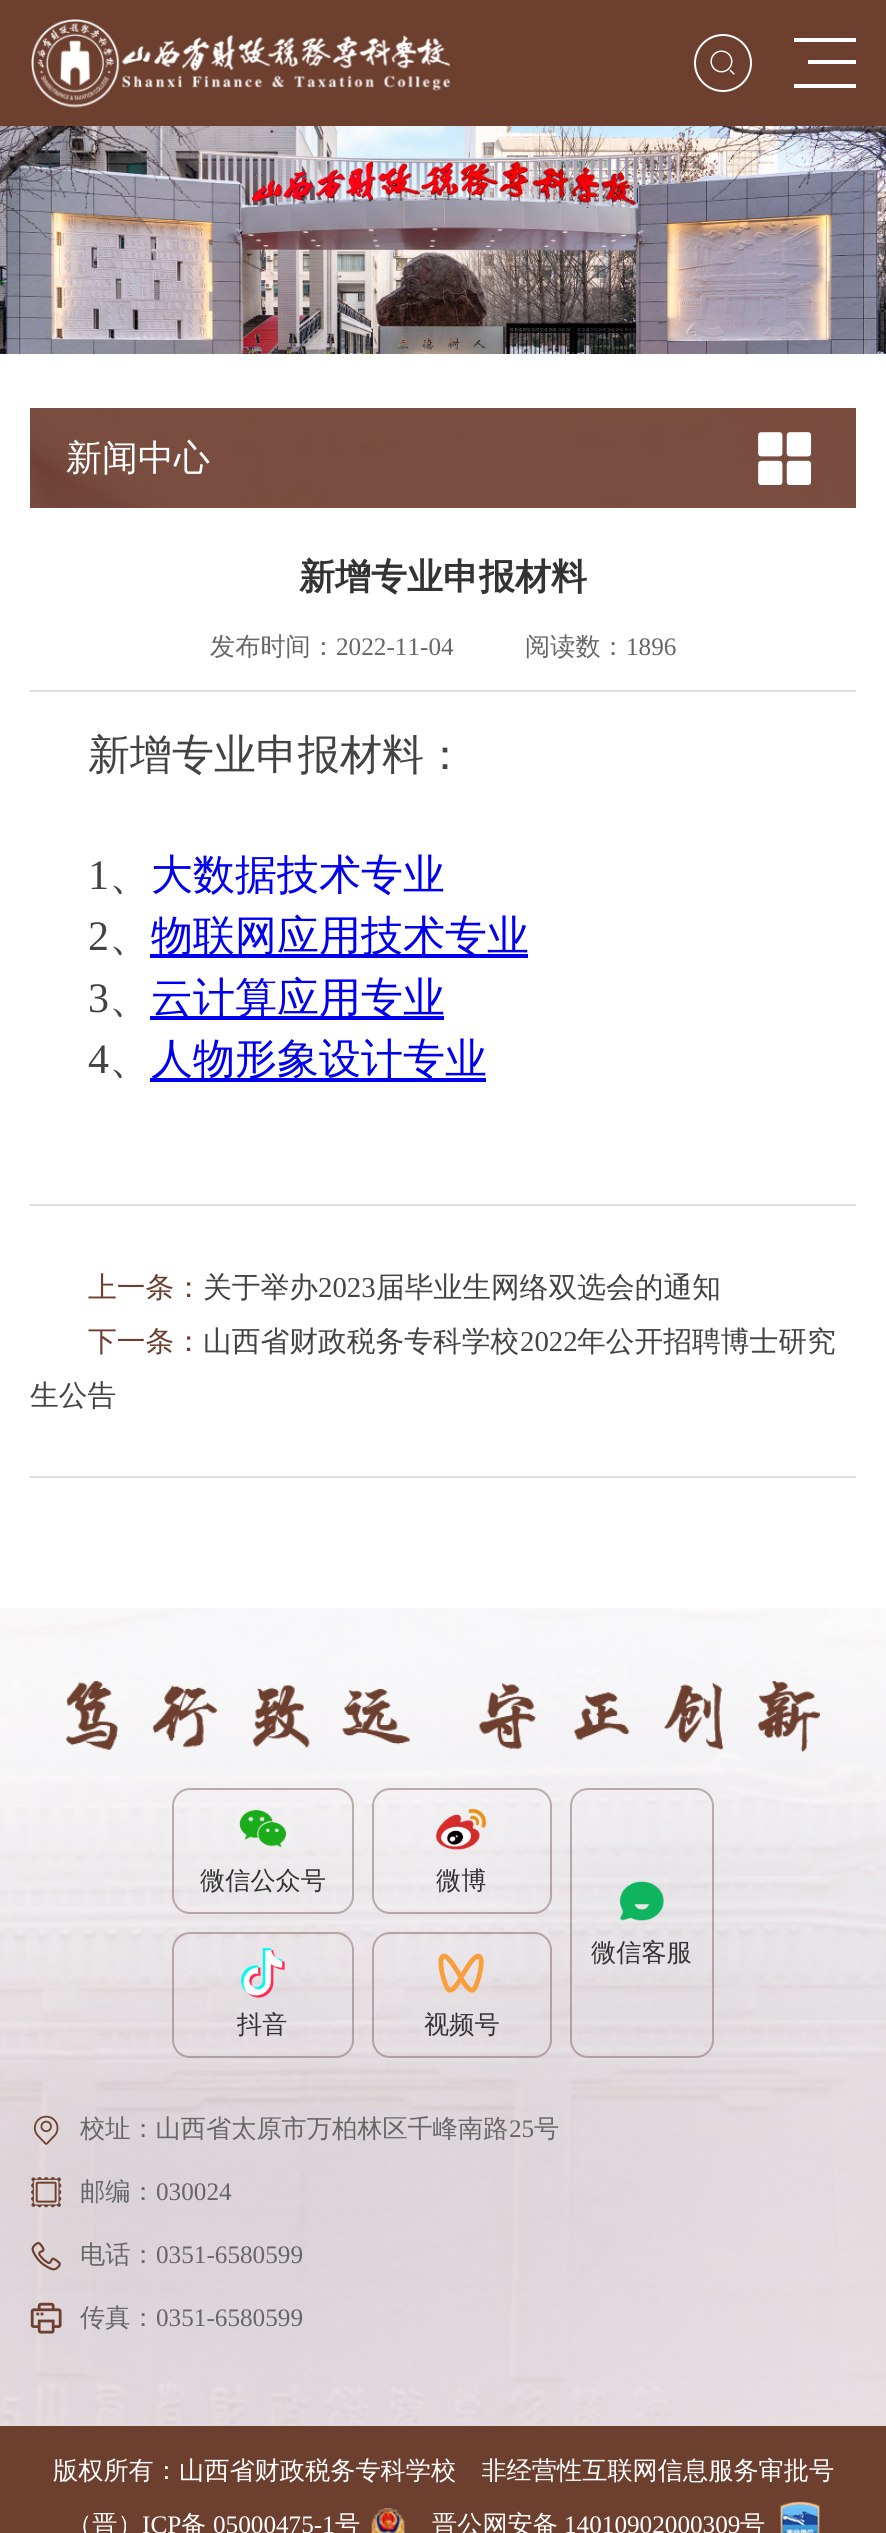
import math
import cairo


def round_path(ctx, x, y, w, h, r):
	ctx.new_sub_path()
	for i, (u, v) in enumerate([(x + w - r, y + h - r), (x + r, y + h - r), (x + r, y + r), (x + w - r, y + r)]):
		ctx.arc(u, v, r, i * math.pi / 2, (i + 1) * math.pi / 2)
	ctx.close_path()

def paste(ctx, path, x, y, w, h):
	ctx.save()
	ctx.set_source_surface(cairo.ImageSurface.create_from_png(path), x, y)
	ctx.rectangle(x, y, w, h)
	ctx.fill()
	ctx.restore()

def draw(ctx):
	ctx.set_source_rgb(1, 1, 1)
	ctx.paint()
	ctx.set_source_rgb(0.427, 0.247, 0.184)
	ctx.rectangle(0, 0, 886, 126)
	ctx.fill()
	paste(ctx, 'media/1.png', 31, 19, 419, 89)
	paste(ctx, 'media/2.png', 710, 50, 25, 25)
	ctx.arc(723, 63, 28, 0, 2 * math.pi)
	ctx.set_source_rgb(1, 1, 1)
	ctx.stroke()
	ctx.rectangle(794, 38, 62, 4)
	ctx.rectangle(808, 60, 48, 4)
	ctx.rectangle(794, 84, 62, 4)
	ctx.fill()
	paste(ctx, 'media/3.png', 0, 126, 886, 228)
	paste(ctx, 'media/4.png', 30, 408, 826, 100)
	ctx.select_font_face('WenQuanYi Zen Hei Medium')
	ctx.set_font_size(36)
	ctx.move_to(66, 470)
	ctx.show_text('新闻中心')
	paste(ctx, 'media/5.png', 758, 432, 54, 53)
	ctx.select_font_face('WenQuanYi Zen Hei', cairo.FONT_SLANT_NORMAL, cairo.FONT_WEIGHT_BOLD)
	ctx.set_source_rgb(0.2, 0.2, 0.2)
	ctx.move_to(299, 589)
	ctx.show_text('新增专业申报材料')
	ctx.set_source_rgb(0.863, 0.863, 0.863)
	ctx.rectangle(30, 690, 826, 2)
	ctx.fill()
	ctx.select_font_face('WenQuanYi Zen Hei Medium')
	ctx.set_font_size(25.2)
	ctx.set_source_rgb(0.4, 0.4, 0.4)
	ctx.move_to(210, 655)
	ctx.show_text('发布时间：')
	ctx.select_font_face('Liberation Serif')
	ctx.move_to(336, 655)
	ctx.show_text('2022-11-04')
	ctx.select_font_face('WenQuanYi Zen Hei Medium')
	ctx.move_to(525, 655)
	ctx.show_text('阅读数：')
	ctx.select_font_face('Liberation Serif')
	ctx.move_to(626, 655)
	ctx.show_text('1896')
	ctx.select_font_face('WenQuanYi Zen Hei Medium')
	ctx.set_font_size(42)
	ctx.set_source_rgb(0.263, 0.263, 0.263)
	ctx.move_to(88, 769)
	ctx.show_text('新增专业申报材料：')
	ctx.select_font_face('Liberation Serif')
	ctx.move_to(88, 889)
	ctx.show_text('1')
	ctx.select_font_face('WenQuanYi Zen Hei Medium')
	ctx.set_source_rgb(0, 0, 0.933)
	ctx.move_to(151, 889)
	ctx.show_text('大数据技术专业')
	ctx.set_source_rgb(0.263, 0.263, 0.263)
	ctx.move_to(109, 889)
	ctx.show_text('、')
	ctx.select_font_face('Liberation Serif')
	ctx.move_to(88, 950)
	ctx.show_text('2')
	ctx.set_source_rgb(0, 0, 0.933)
	ctx.rectangle(150, 954, 378, 4)
	ctx.fill()
	ctx.select_font_face('WenQuanYi Zen Hei Medium')
	ctx.move_to(151, 950)
	ctx.show_text('物联网应用技术专业')
	ctx.set_source_rgb(0.263, 0.263, 0.263)
	ctx.move_to(109, 950)
	ctx.show_text('、')
	ctx.select_font_face('Liberation Serif')
	ctx.move_to(88, 1012)
	ctx.show_text('3')
	ctx.select_font_face('WenQuanYi Zen Hei Medium')
	ctx.move_to(109, 1012)
	ctx.show_text('、')
	ctx.set_source_rgb(0, 0, 0.933)
	ctx.rectangle(150, 1016, 294, 4)
	ctx.fill()
	ctx.move_to(151, 1012)
	ctx.show_text('云计算应用专业')
	ctx.select_font_face('Liberation Serif')
	ctx.set_source_rgb(0.263, 0.263, 0.263)
	ctx.move_to(88, 1073)
	ctx.show_text('4')
	ctx.set_source_rgb(0, 0, 0.933)
	ctx.rectangle(150, 1078, 336, 4)
	ctx.fill()
	ctx.select_font_face('WenQuanYi Zen Hei Medium')
	ctx.move_to(151, 1073)
	ctx.show_text('人物形象设计专业')
	ctx.set_source_rgb(0.263, 0.263, 0.263)
	ctx.move_to(109, 1073)
	ctx.show_text('、')
	ctx.set_source_rgb(0.863, 0.863, 0.863)
	ctx.rectangle(30, 1204, 826, 2)
	ctx.fill()
	ctx.rectangle(30, 1476, 826, 2)
	ctx.fill()
	ctx.set_font_size(28.75)
	ctx.set_source_rgb(0.427, 0.247, 0.184)
	ctx.move_to(88, 1297)
	ctx.show_text('上一条：')
	ctx.set_source_rgb(0.263, 0.263, 0.263)
	ctx.move_to(203, 1297)
	ctx.show_text('关于举办')
	ctx.select_font_face('Liberation Serif')
	ctx.move_to(318, 1297)
	ctx.show_text('2023')
	ctx.select_font_face('WenQuanYi Zen Hei Medium')
	ctx.move_to(376, 1297)
	ctx.show_text('届毕业生网络双选会的通知')
	ctx.set_source_rgb(0.427, 0.247, 0.184)
	ctx.move_to(88, 1351)
	ctx.show_text('下一条：')
	ctx.set_source_rgb(0.263, 0.263, 0.263)
	ctx.move_to(203, 1351)
	ctx.show_text('山西省财政税务专科学校')
	ctx.select_font_face('Liberation Serif')
	ctx.move_to(520, 1351)
	ctx.show_text('2022')
	ctx.select_font_face('WenQuanYi Zen Hei Medium')
	ctx.move_to(577, 1351)
	ctx.show_text('年公开招聘博士研究')
	ctx.move_to(30, 1405)
	ctx.show_text('生公告')
	paste(ctx, 'media/6.png', 0, 1608, 886, 818)
	paste(ctx, 'media/7.png', 66, 1680, 754, 72)
	round_path(ctx, 173, 1789, 180, 124, 17)
	ctx.set_source_rgba(0.525, 0.404, 0.396, 0.5)
	ctx.stroke()
	paste(ctx, 'media/8.png', 239, 1810, 48, 38)
	ctx.set_font_size(25.2)
	ctx.set_source_rgb(0.2, 0.2, 0.2)
	ctx.move_to(200, 1889)
	ctx.show_text('微信公众号')
	round_path(ctx, 373, 1789, 178, 124, 17)
	ctx.set_source_rgba(0.525, 0.404, 0.396, 0.5)
	ctx.stroke()
	paste(ctx, 'media/9.png', 435, 1808, 52, 42)
	ctx.set_source_rgb(0.2, 0.2, 0.2)
	ctx.move_to(436, 1889)
	ctx.show_text('微博')
	round_path(ctx, 173, 1933, 180, 124, 17)
	ctx.set_source_rgba(0.525, 0.404, 0.396, 0.5)
	ctx.stroke()
	paste(ctx, 'media/10.png', 241, 1948, 44, 50)
	ctx.set_source_rgb(0.2, 0.2, 0.2)
	ctx.move_to(237, 2033)
	ctx.show_text('抖音')
	round_path(ctx, 373, 1933, 178, 124, 17)
	ctx.set_source_rgba(0.525, 0.404, 0.396, 0.5)
	ctx.stroke()
	paste(ctx, 'media/11.png', 438, 1953, 46, 40)
	ctx.set_source_rgb(0.2, 0.2, 0.2)
	ctx.move_to(424, 2033)
	ctx.show_text('视频号')
	round_path(ctx, 571, 1789, 142, 268, 17)
	ctx.set_source_rgba(0.525, 0.404, 0.396, 0.5)
	ctx.stroke()
	paste(ctx, 'media/12.png', 619, 1881, 45, 40)
	ctx.set_source_rgb(0.2, 0.2, 0.2)
	ctx.move_to(591, 1961)
	ctx.show_text('微信客服')
	paste(ctx, 'media/13.png', 34, 2115, 25, 30)
	ctx.set_source_rgb(0.4, 0.4, 0.4)
	ctx.move_to(80, 2137)
	ctx.show_text('校址：山西省太原市万柏林区千峰南路')
	ctx.select_font_face('Liberation Serif')
	ctx.move_to(509, 2137)
	ctx.show_text('25')
	ctx.select_font_face('WenQuanYi Zen Hei Medium')
	ctx.move_to(534, 2137)
	ctx.show_text('号')
	paste(ctx, 'media/14.png', 31, 2177, 31, 31)
	ctx.move_to(80, 2200)
	ctx.show_text('邮编：')
	ctx.select_font_face('Liberation Serif')
	ctx.move_to(156, 2200)
	ctx.show_text('030024')
	paste(ctx, 'media/15.png', 31, 2242, 30, 29)
	ctx.select_font_face('WenQuanYi Zen Hei Medium')
	ctx.move_to(80, 2263)
	ctx.show_text('电话：')
	ctx.select_font_face('Liberation Serif')
	ctx.move_to(156, 2263)
	ctx.show_text('0351-6580599')
	paste(ctx, 'media/16.png', 30, 2302, 32, 32)
	ctx.select_font_face('WenQuanYi Zen Hei Medium')
	ctx.move_to(80, 2326)
	ctx.show_text('传真：')
	ctx.select_font_face('Liberation Serif')
	ctx.move_to(156, 2326)
	ctx.show_text('0351-6580599')
	ctx.set_source_rgb(0.427, 0.247, 0.184)
	ctx.rectangle(0, 2426, 886, 107)
	ctx.fill()
	ctx.select_font_face('WenQuanYi Zen Hei Medium')
	ctx.set_source_rgb(1, 1, 1)
	ctx.move_to(53, 2479)
	ctx.show_text('版权所有：山西省财政税务专科学校　非经营性互联网信息服务审批号')
	paste(ctx, 'media/17.png', 371, 2508, 34, 25)
	ctx.move_to(67, 2533)
	ctx.show_text('（晋）')
	ctx.select_font_face('Liberation Serif')
	ctx.move_to(142, 2533)
	ctx.show_text('ICP')
	ctx.select_font_face('WenQuanYi Zen Hei Medium')
	ctx.move_to(181, 2533)
	ctx.show_text('备')
	ctx.select_font_face('Liberation Serif')
	ctx.move_to(213, 2533)
	ctx.show_text('05000475-1')
	ctx.select_font_face('WenQuanYi Zen Hei Medium')
	ctx.move_to(335, 2533)
	ctx.show_text('号')
	paste(ctx, 'media/18.png', 780, 2501, 40, 32)
	ctx.move_to(432, 2533)
	ctx.show_text('晋公网安备')
	ctx.select_font_face('Liberation Serif')
	ctx.move_to(564, 2533)
	ctx.show_text('14010902000309')
	ctx.select_font_face('WenQuanYi Zen Hei Medium')
	ctx.move_to(740, 2533)
	ctx.show_text('号')


surface = cairo.ImageSurface(cairo.FORMAT_RGB24, 886, 2533)
ctx = cairo.Context(surface)
options = cairo.FontOptions()
options.set_hint_metrics(cairo.HINT_METRICS_OFF)
options.set_hint_style(cairo.HINT_STYLE_NONE)
ctx.set_font_options(options)
ctx.set_miter_limit(4)
draw(ctx)
surface.write_to_png('image.png')
